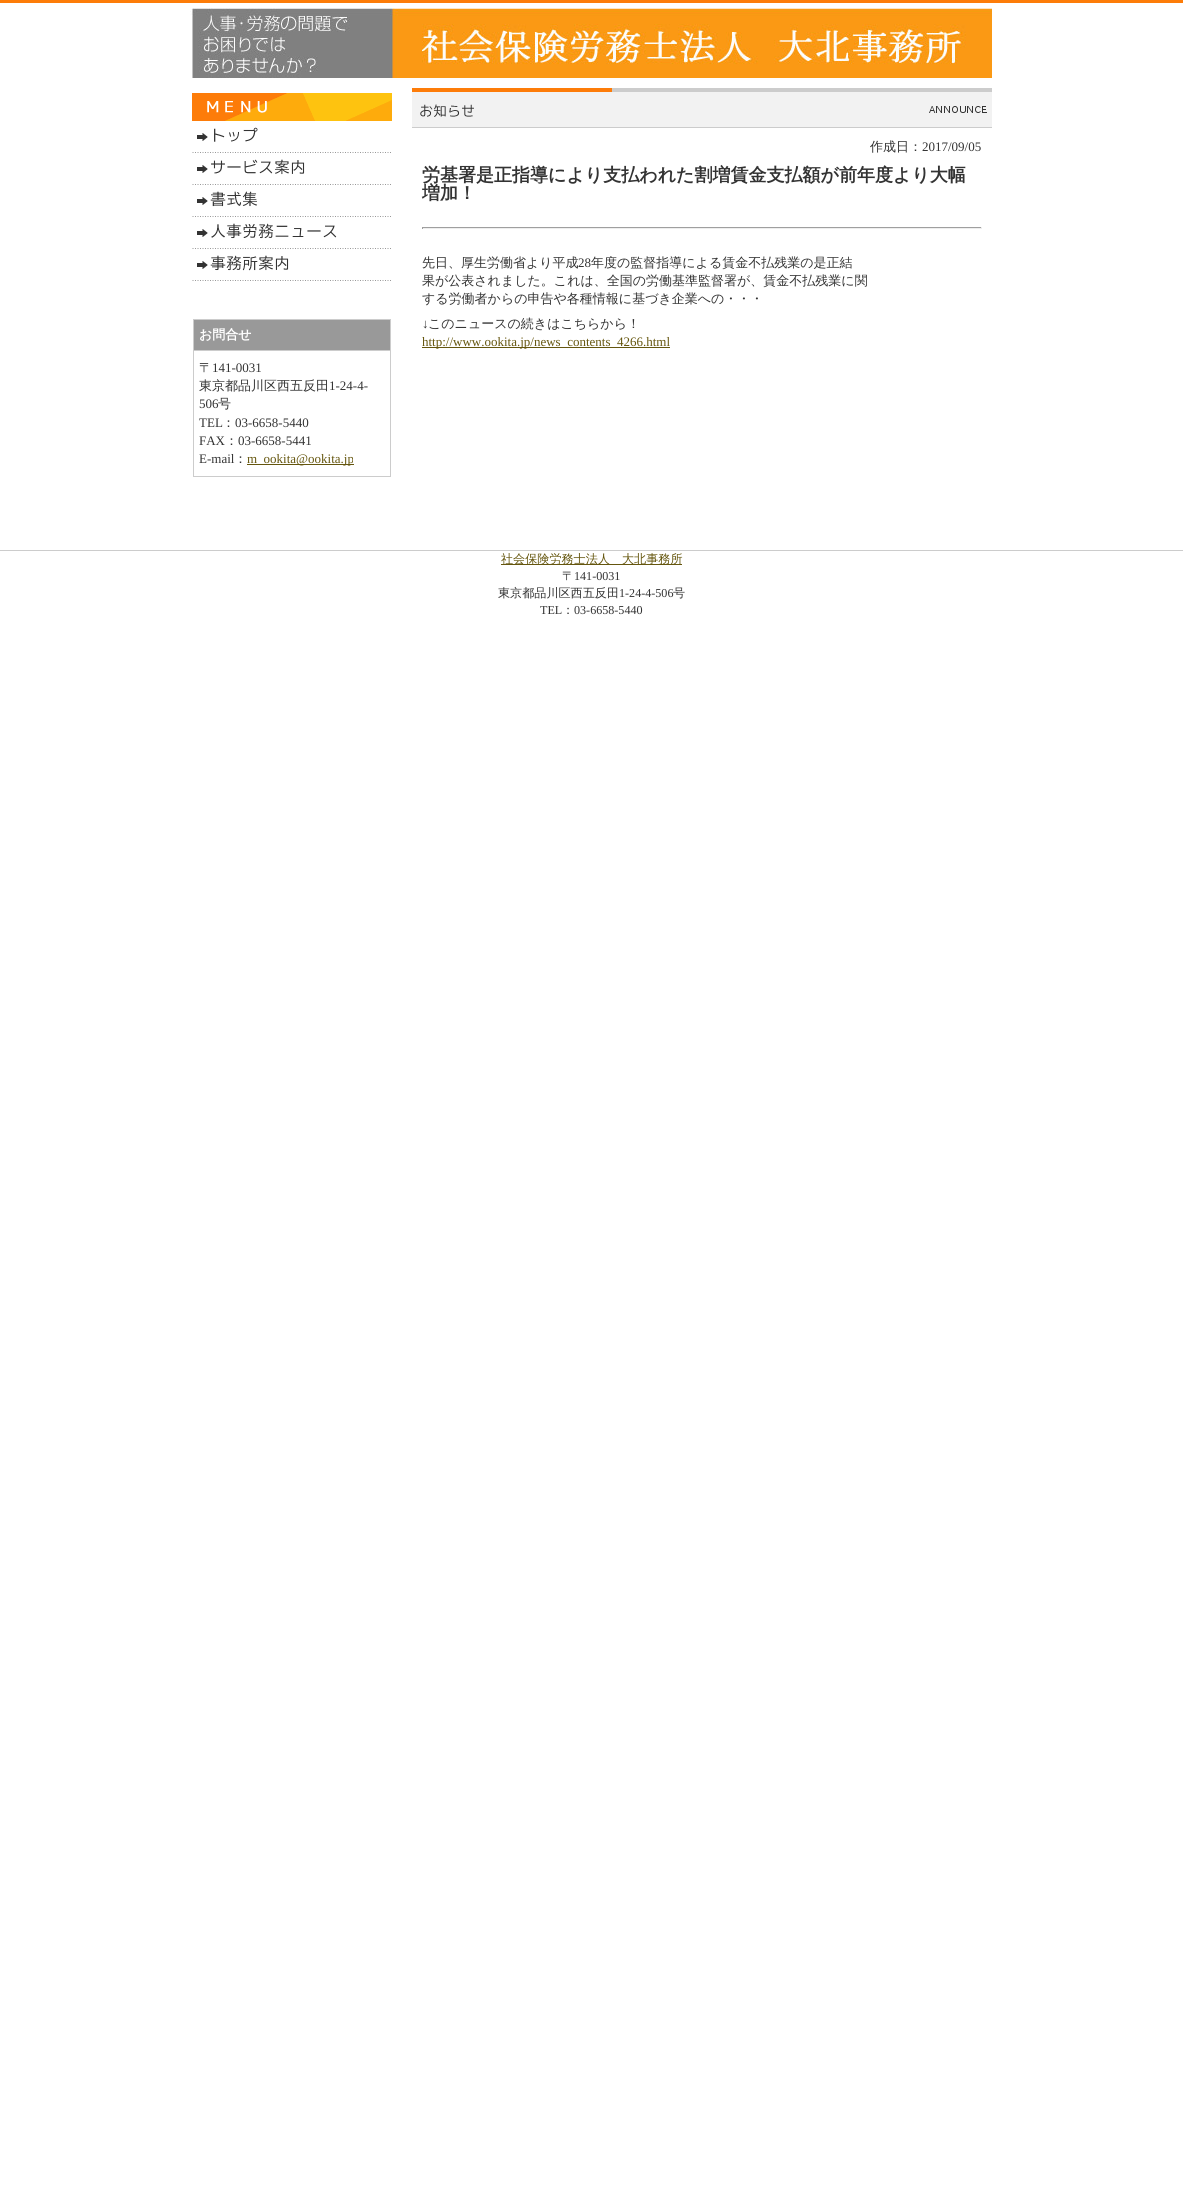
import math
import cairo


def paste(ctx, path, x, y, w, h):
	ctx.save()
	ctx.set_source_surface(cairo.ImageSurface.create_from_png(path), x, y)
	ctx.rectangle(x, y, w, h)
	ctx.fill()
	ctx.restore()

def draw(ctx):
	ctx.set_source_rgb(1, 1, 1)
	ctx.paint()
	ctx.set_source_rgb(0.992, 0.486, 0.035)
	ctx.rectangle(0, 0, 1183, 3)
	ctx.fill()
	paste(ctx, 'media/1.png', 190, 8, 802, 70)
	paste(ctx, 'media/2.png', 412, 88, 580, 40)
	ctx.select_font_face('WenQuanYi Zen Hei Medium')
	ctx.set_font_size(13)
	ctx.set_source_rgb(0.2, 0.2, 0.2)
	ctx.move_to(870, 151)
	ctx.show_text('作成日：')
	ctx.select_font_face('Liberation Serif')
	ctx.move_to(922, 151)
	ctx.show_text('2017/09/05')
	ctx.select_font_face('WenQuanYi Zen Hei', cairo.FONT_SLANT_NORMAL, cairo.FONT_WEIGHT_BOLD)
	ctx.set_font_size(18)
	ctx.move_to(422, 181)
	ctx.show_text('労基署是正指導により支払われた割増賃金支払額が前年度より大幅')
	ctx.move_to(422, 199)
	ctx.show_text('増加！')
	ctx.set_source_rgb(0.624, 0.624, 0.624)
	ctx.rectangle(422, 227, 560, 1)
	ctx.fill()
	ctx.set_source_rgb(0.933, 0.933, 0.933)
	ctx.rectangle(981, 227, 1, 2)
	ctx.rectangle(422, 228, 560, 1)
	ctx.fill()
	ctx.set_source_rgb(0.624, 0.624, 0.624)
	ctx.rectangle(422, 227, 1, 2)
	ctx.fill()
	ctx.select_font_face('WenQuanYi Zen Hei Medium')
	ctx.set_font_size(13)
	ctx.set_source_rgb(0.2, 0.2, 0.2)
	ctx.move_to(422, 267)
	ctx.show_text('先日、厚生労働省より平成')
	ctx.select_font_face('Liberation Serif')
	ctx.move_to(578, 267)
	ctx.show_text('28')
	ctx.select_font_face('WenQuanYi Zen Hei Medium')
	for x, y, s in [
		(591, 267, '年度の監督指導による賃金不払残業の是正結'),
		(422, 285, '果が公表されました。これは、全国の労働基準監督署が、賃金不払残業に関'),
		(422, 303, 'する労働者からの申告や各種情報に基づき企業への・・・'),
	]:
		ctx.move_to(x, y)
		ctx.show_text(s)
	ctx.select_font_face('Liberation Serif')
	ctx.move_to(422, 328)
	ctx.show_text('↓')
	ctx.select_font_face('WenQuanYi Zen Hei Medium')
	ctx.move_to(428, 328)
	ctx.show_text('このニュースの続きはこちらから！')
	ctx.set_source_rgb(0.396, 0.337, 0.055)
	ctx.rectangle(422, 347, 248, 1)
	ctx.fill()
	ctx.select_font_face('Liberation Serif')
	ctx.move_to(422, 346)
	ctx.show_text('http://www.ookita.jp/news_contents_4266.html')
	paste(ctx, 'media/3.png', 192, 93, 200, 28)
	paste(ctx, 'media/4.png', 192, 127, 199, 26)
	paste(ctx, 'media/5.png', 192, 159, 199, 26)
	paste(ctx, 'media/6.png', 192, 191, 199, 26)
	paste(ctx, 'media/7.png', 192, 223, 199, 26)
	paste(ctx, 'media/8.png', 192, 255, 199, 26)
	ctx.set_source_rgb(0.6, 0.6, 0.6)
	ctx.rectangle(194, 320, 196, 30)
	ctx.fill()
	ctx.set_source_rgb(0.8, 0.8, 0.8)
	ctx.rectangle(193, 319, 198, 1)
	ctx.rectangle(193, 350, 198, 1)
	ctx.rectangle(390, 350, 1, 127)
	ctx.rectangle(390, 319, 1, 32)
	ctx.rectangle(193, 476, 198, 1)
	ctx.rectangle(193, 350, 1, 127)
	ctx.rectangle(193, 319, 1, 32)
	ctx.fill()
	ctx.select_font_face('WenQuanYi Zen Hei', cairo.FONT_SLANT_NORMAL, cairo.FONT_WEIGHT_BOLD)
	ctx.set_source_rgb(1, 1, 1)
	ctx.move_to(199, 339)
	ctx.show_text('お問合せ')
	ctx.select_font_face('WenQuanYi Zen Hei Medium')
	ctx.set_source_rgb(0.2, 0.2, 0.2)
	ctx.move_to(199, 372)
	ctx.show_text('〒')
	ctx.select_font_face('Liberation Serif')
	ctx.move_to(212, 372)
	ctx.show_text('141-0031')
	ctx.select_font_face('WenQuanYi Zen Hei Medium')
	ctx.move_to(199, 390)
	ctx.show_text('東京都品川区西五反田')
	ctx.select_font_face('Liberation Serif')
	ctx.move_to(329, 390)
	ctx.show_text('1-24-4-')
	ctx.move_to(199, 408)
	ctx.show_text('506')
	ctx.select_font_face('WenQuanYi Zen Hei Medium')
	ctx.move_to(218, 408)
	ctx.show_text('号')
	ctx.select_font_face('Liberation Serif')
	ctx.move_to(199, 427)
	ctx.show_text('TEL')
	ctx.select_font_face('WenQuanYi Zen Hei Medium')
	ctx.move_to(222, 427)
	ctx.show_text('：')
	ctx.select_font_face('Liberation Serif')
	ctx.move_to(235, 427)
	ctx.show_text('03-6658-5440')
	ctx.move_to(199, 445)
	ctx.show_text('FAX')
	ctx.select_font_face('WenQuanYi Zen Hei Medium')
	ctx.move_to(225, 445)
	ctx.show_text('：')
	ctx.select_font_face('Liberation Serif')
	ctx.move_to(238, 445)
	ctx.show_text('03-6658-5441')
	ctx.move_to(199, 463)
	ctx.show_text('E-mail')
	ctx.select_font_face('WenQuanYi Zen Hei Medium')
	ctx.move_to(234, 463)
	ctx.show_text('：')
	ctx.set_source_rgb(0.396, 0.337, 0.055)
	ctx.rectangle(247, 464, 107, 1)
	ctx.fill()
	ctx.select_font_face('Liberation Serif')
	ctx.move_to(247, 463)
	ctx.show_text('m_ookita@ookita.jp')
	ctx.set_source_rgb(0.8, 0.8, 0.8)
	ctx.rectangle(0, 550, 1183, 1)
	ctx.fill()
	ctx.set_source_rgb(0.396, 0.337, 0.055)
	ctx.rectangle(501, 564, 181, 1)
	ctx.fill()
	ctx.select_font_face('WenQuanYi Zen Hei Medium')
	ctx.set_font_size(12.1)
	ctx.move_to(501, 563)
	ctx.show_text('社会保険労務士法人　大北事務所')
	ctx.set_source_rgb(0.2, 0.2, 0.2)
	ctx.move_to(562, 580)
	ctx.show_text('〒')
	ctx.select_font_face('Liberation Serif')
	ctx.move_to(574, 580)
	ctx.show_text('141-0031')
	ctx.select_font_face('WenQuanYi Zen Hei Medium')
	ctx.move_to(498, 597)
	ctx.show_text('東京都品川区西五反田')
	ctx.select_font_face('Liberation Serif')
	ctx.move_to(619, 597)
	ctx.show_text('1-24-4-506')
	ctx.select_font_face('WenQuanYi Zen Hei Medium')
	ctx.move_to(673, 597)
	ctx.show_text('号')
	ctx.select_font_face('Liberation Serif')
	ctx.move_to(540, 614)
	ctx.show_text('TEL')
	ctx.select_font_face('WenQuanYi Zen Hei Medium')
	ctx.move_to(562, 614)
	ctx.show_text('：')
	ctx.select_font_face('Liberation Serif')
	ctx.move_to(574, 614)
	ctx.show_text('03-6658-5440')


surface = cairo.ImageSurface(cairo.FORMAT_RGB24, 1183, 2208)
ctx = cairo.Context(surface)
options = cairo.FontOptions()
options.set_hint_metrics(cairo.HINT_METRICS_OFF)
options.set_hint_style(cairo.HINT_STYLE_NONE)
ctx.set_font_options(options)
ctx.set_miter_limit(4)
draw(ctx)
surface.write_to_png('image.png')
